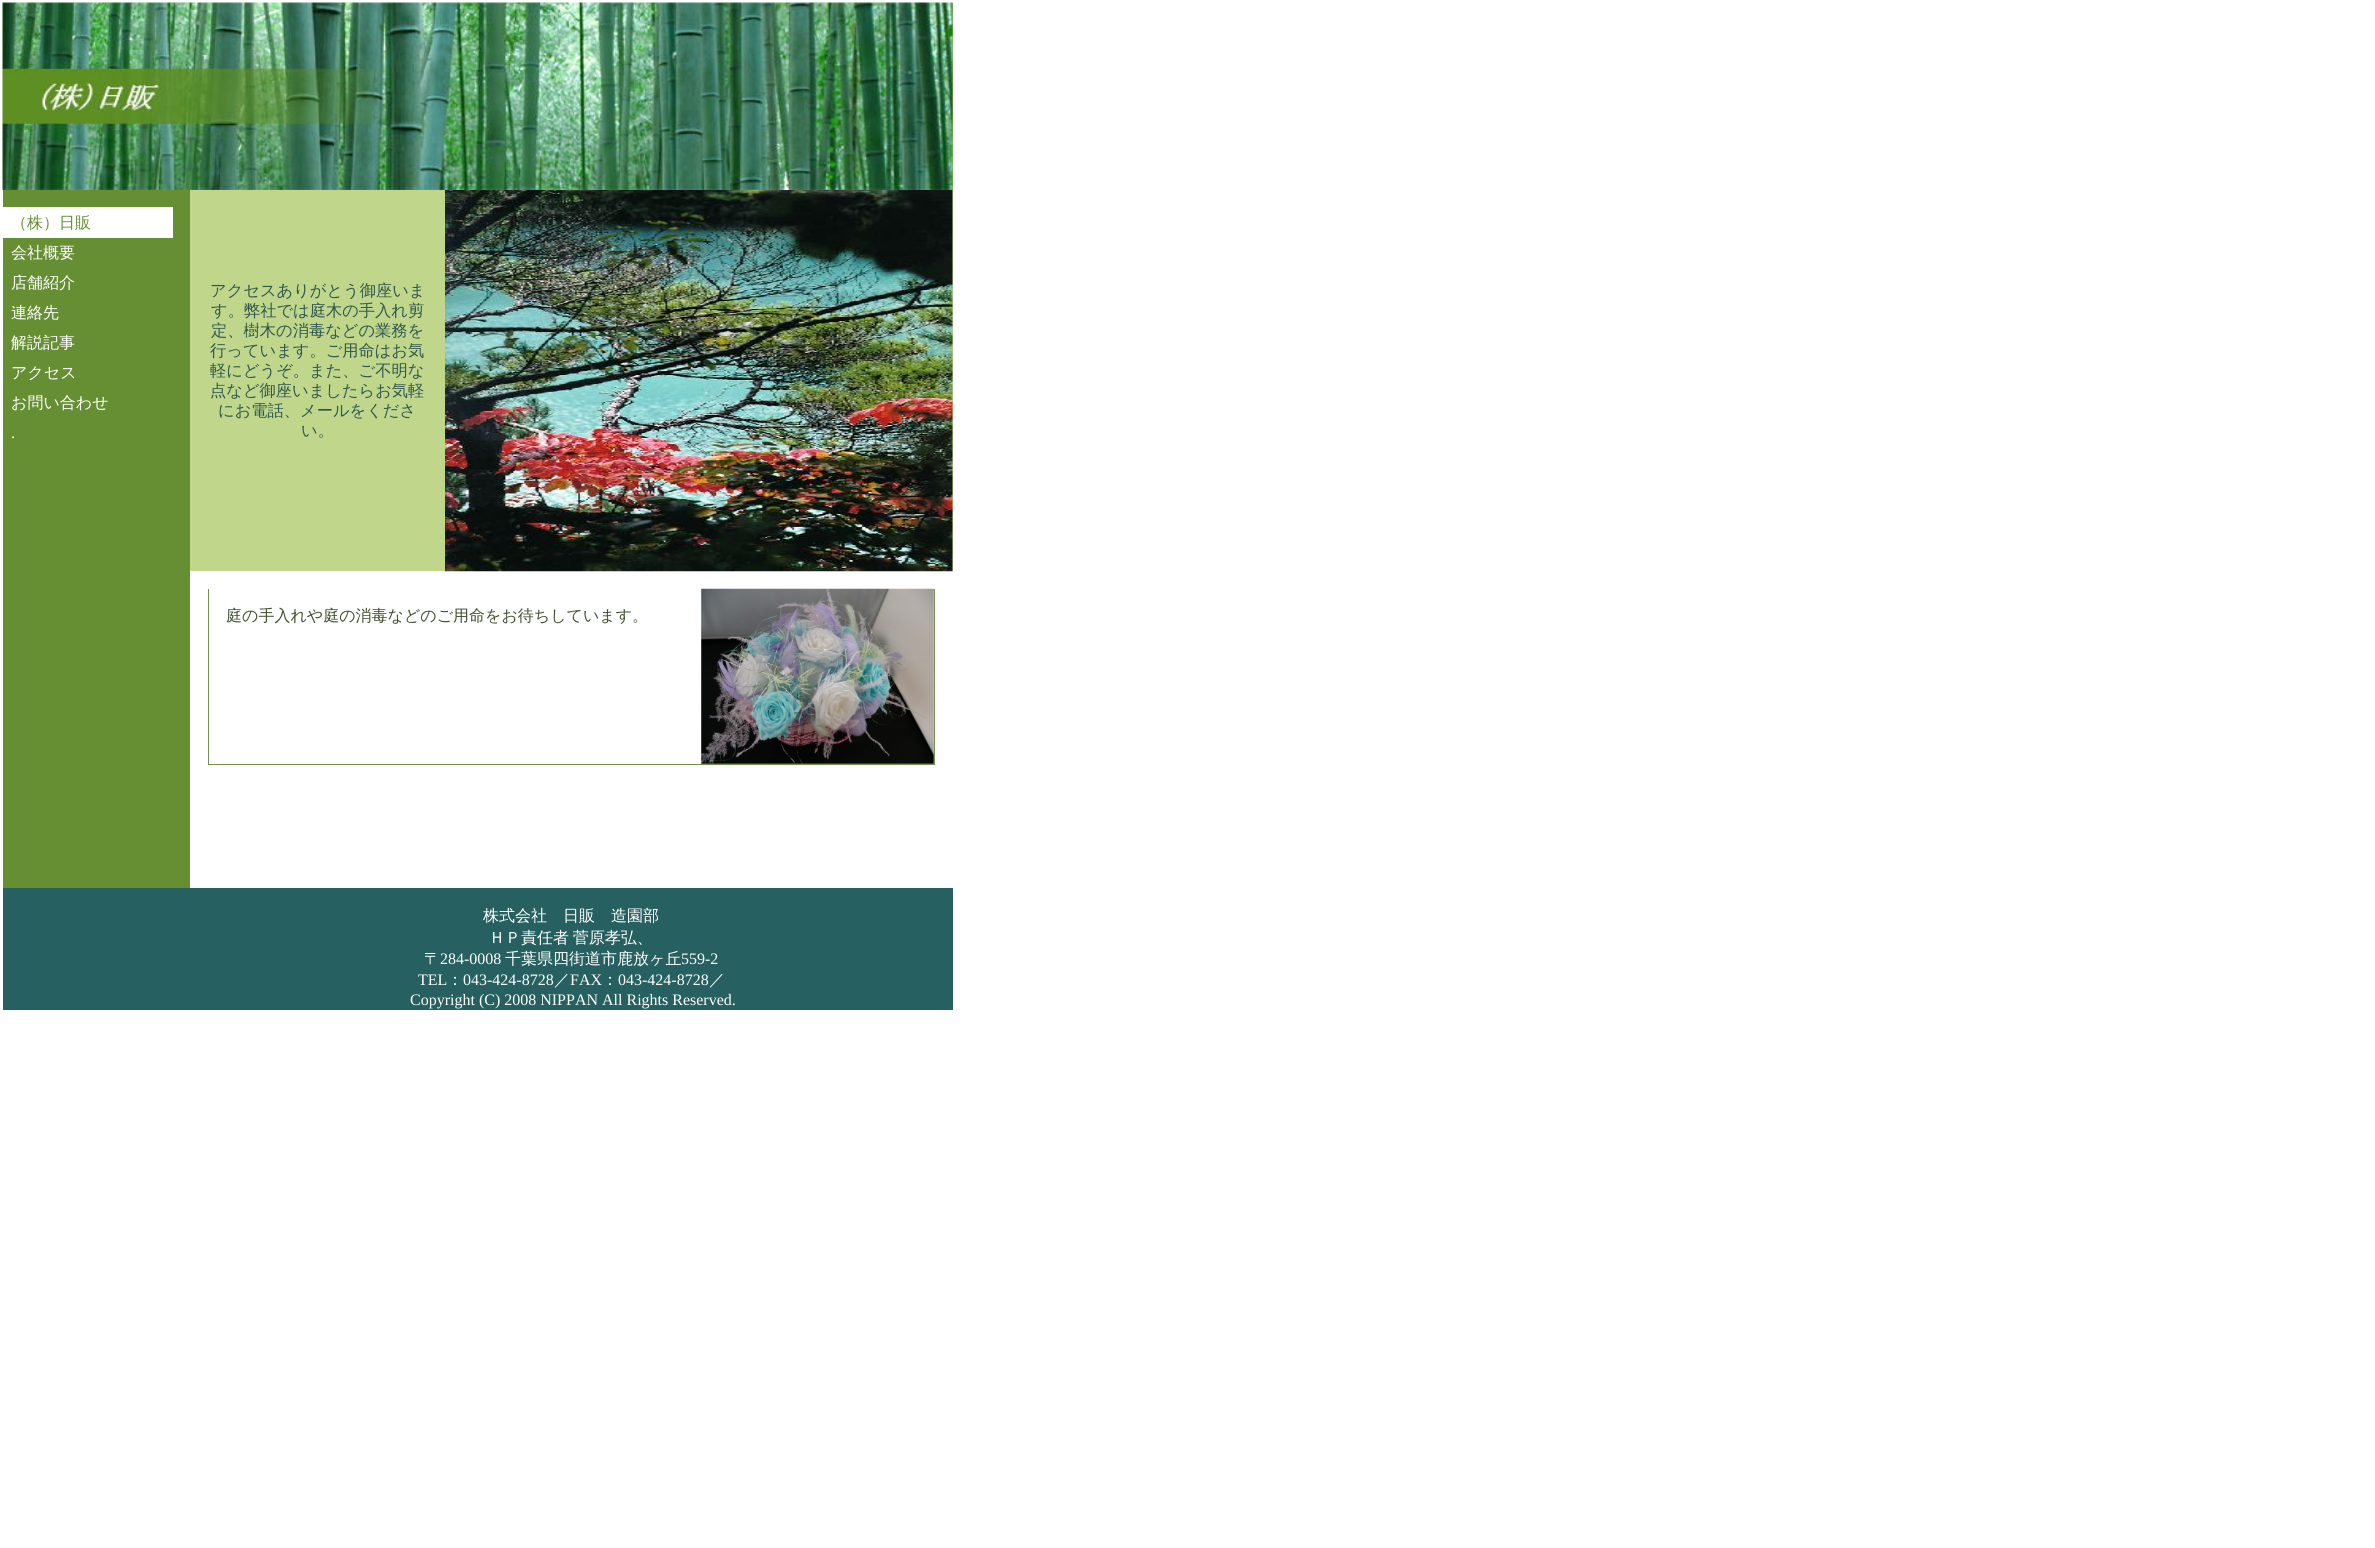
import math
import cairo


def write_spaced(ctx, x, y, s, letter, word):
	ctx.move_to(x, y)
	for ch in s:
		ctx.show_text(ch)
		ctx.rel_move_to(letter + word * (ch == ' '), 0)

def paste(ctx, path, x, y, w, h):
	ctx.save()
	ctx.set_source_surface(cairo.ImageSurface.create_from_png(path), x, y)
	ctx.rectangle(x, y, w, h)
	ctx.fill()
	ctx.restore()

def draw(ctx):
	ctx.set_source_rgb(1, 1, 1)
	ctx.paint()
	ctx.set_source_rgb(0.494, 0.702, 0.243)
	ctx.rectangle(952, 3, 1, 187)
	ctx.fill()
	paste(ctx, 'media/1.png', 2, 2, 951, 188)
	ctx.set_source_rgb(0.4, 0.561, 0.204)
	ctx.rectangle(3, 190, 187, 698)
	ctx.fill()
	ctx.set_source_rgb(1, 1, 1)
	ctx.rectangle(3, 207, 170, 31)
	ctx.fill()
	ctx.select_font_face('WenQuanYi Zen Hei Medium')
	ctx.set_font_size(16)
	ctx.set_source_rgb(0.4, 0.561, 0.204)
	ctx.move_to(11, 228)
	ctx.show_text('（株）日販')
	ctx.set_source_rgb(1, 1, 1)
	for x, y, s in [
		(11, 258, '会社概要'),
		(11, 288, '店舗紹介'),
		(11, 318, '連絡先'),
		(11, 348, '解説記事'),
		(11, 378, 'アクセス'),
		(11, 408, 'お問い合わせ'),
	]:
		ctx.move_to(x, y)
		ctx.show_text(s)
	ctx.select_font_face('Liberation Serif')
	ctx.move_to(11, 438)
	ctx.show_text('.')
	ctx.set_source_rgb(0.749, 0.839, 0.545)
	ctx.rectangle(190, 190, 255, 381)
	ctx.fill()
	ctx.select_font_face('WenQuanYi Zen Hei Medium')
	ctx.set_font_size(16.25)
	ctx.set_source_rgb(0.188, 0.345, 0.31)
	for x, y, s in [
		(210, 296, 'アクセスありがとう御座いま'),
		(211, 316, 'す。弊社では庭木の手入れ剪'),
		(211, 336, '定、樹木の消毒などの業務を'),
		(210, 356, '行っています。ご用命はお気'),
		(210, 376, '軽にどうぞ。また、ご不明な'),
		(210, 396, '点など御座いましたらお気軽'),
		(218, 416, 'にお電話、メールをくださ'),
		(301, 436, 'い。'),
	]:
		ctx.move_to(x, y)
		ctx.show_text(s)
	ctx.set_source_rgb(0.749, 0.839, 0.545)
	ctx.rectangle(952, 190, 1, 381)
	ctx.fill()
	paste(ctx, 'media/2.png', 445, 190, 508, 382)
	ctx.set_source_rgb(0.459, 0.557, 0.325)
	ctx.rectangle(208, 764, 493, 1)
	ctx.fill()
	ctx.rectangle(208, 589, 1, 176)
	ctx.fill()
	ctx.set_font_size(16)
	ctx.set_source_rgb(0.259, 0.314, 0.18)
	ctx.move_to(226, 621)
	ctx.show_text('庭の手入れや庭の消毒などのご用命をお待ちしています。')
	ctx.set_source_rgb(0.839, 0.953, 0.678)
	ctx.rectangle(701, 589, 233, 175)
	ctx.fill()
	ctx.set_source_rgb(0.459, 0.557, 0.325)
	ctx.rectangle(934, 589, 1, 176)
	ctx.rectangle(701, 764, 234, 1)
	ctx.fill()
	paste(ctx, 'media/3.png', 701, 588, 233, 176)
	ctx.set_source_rgb(0.153, 0.376, 0.38)
	ctx.rectangle(3, 888, 950, 122)
	ctx.fill()
	ctx.set_source_rgb(1, 1, 1)
	ctx.move_to(483, 921)
	ctx.show_text('株式会社　日販　造園部')
	write_spaced(ctx, 489, 943, 'ＨＰ責任者 菅原孝弘、', 0, -1)
	ctx.move_to(424, 964)
	ctx.show_text('〒')
	ctx.select_font_face('Liberation Serif')
	ctx.move_to(440, 964)
	ctx.show_text('284-0008')
	ctx.select_font_face('WenQuanYi Zen Hei Medium')
	ctx.move_to(505, 964)
	ctx.show_text('千葉県四街道市鹿放ヶ丘')
	ctx.select_font_face('Liberation Serif')
	ctx.move_to(681, 964)
	ctx.show_text('559-2')
	ctx.move_to(418, 985)
	ctx.show_text('TEL')
	ctx.select_font_face('WenQuanYi Zen Hei Medium')
	ctx.move_to(447, 985)
	ctx.show_text('：')
	ctx.select_font_face('Liberation Serif')
	ctx.move_to(463, 985)
	ctx.show_text('043-424-8728')
	ctx.select_font_face('WenQuanYi Zen Hei Medium')
	ctx.move_to(554, 985)
	ctx.show_text('／')
	ctx.select_font_face('Liberation Serif')
	ctx.move_to(570, 985)
	ctx.show_text('FAX')
	ctx.select_font_face('WenQuanYi Zen Hei Medium')
	ctx.move_to(602, 985)
	ctx.show_text('：')
	ctx.select_font_face('Liberation Serif')
	ctx.move_to(618, 985)
	ctx.show_text('043-424-8728')
	ctx.select_font_face('WenQuanYi Zen Hei Medium')
	ctx.move_to(709, 985)
	ctx.show_text('／')
	ctx.select_font_face('Liberation Serif')
	ctx.move_to(410, 1005)
	ctx.show_text('Copyright (C) 2008 NIPPAN All Rights Reserved.')


surface = cairo.ImageSurface(cairo.FORMAT_RGB24, 2375, 1548)
ctx = cairo.Context(surface)
options = cairo.FontOptions()
options.set_hint_metrics(cairo.HINT_METRICS_OFF)
options.set_hint_style(cairo.HINT_STYLE_NONE)
ctx.set_font_options(options)
ctx.set_miter_limit(4)
draw(ctx)
surface.write_to_png('image.png')
